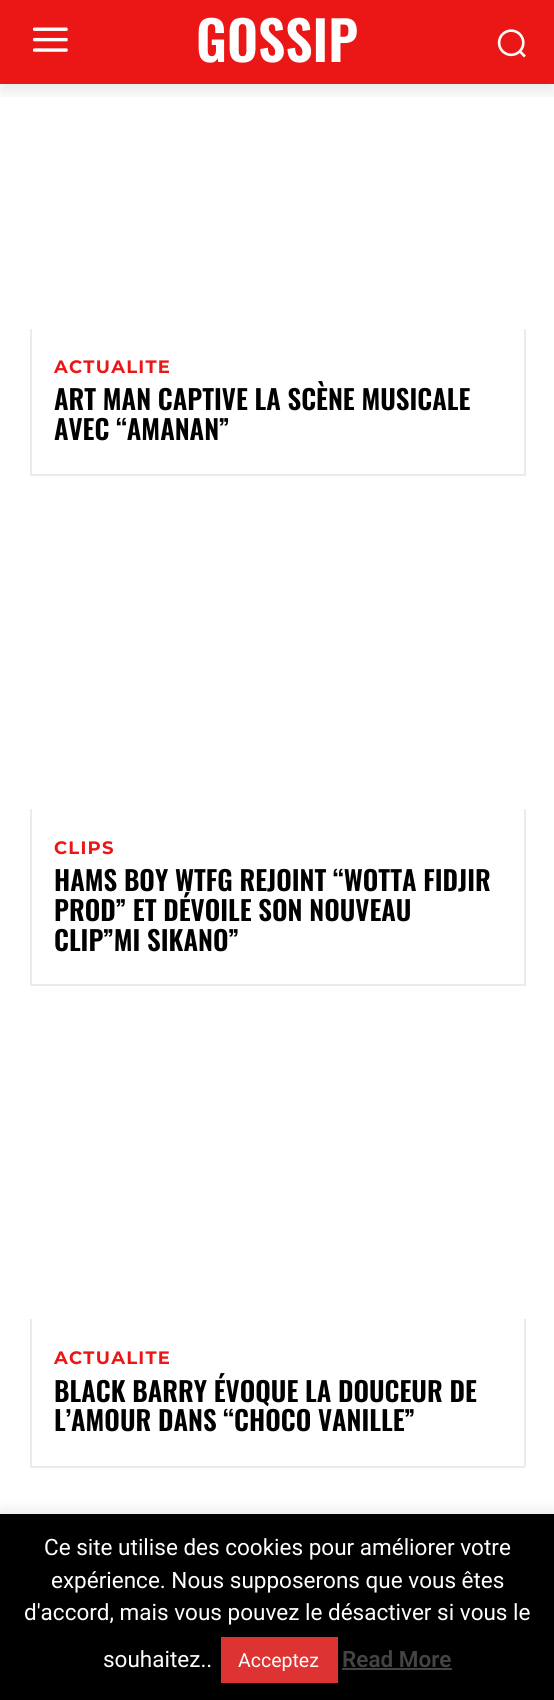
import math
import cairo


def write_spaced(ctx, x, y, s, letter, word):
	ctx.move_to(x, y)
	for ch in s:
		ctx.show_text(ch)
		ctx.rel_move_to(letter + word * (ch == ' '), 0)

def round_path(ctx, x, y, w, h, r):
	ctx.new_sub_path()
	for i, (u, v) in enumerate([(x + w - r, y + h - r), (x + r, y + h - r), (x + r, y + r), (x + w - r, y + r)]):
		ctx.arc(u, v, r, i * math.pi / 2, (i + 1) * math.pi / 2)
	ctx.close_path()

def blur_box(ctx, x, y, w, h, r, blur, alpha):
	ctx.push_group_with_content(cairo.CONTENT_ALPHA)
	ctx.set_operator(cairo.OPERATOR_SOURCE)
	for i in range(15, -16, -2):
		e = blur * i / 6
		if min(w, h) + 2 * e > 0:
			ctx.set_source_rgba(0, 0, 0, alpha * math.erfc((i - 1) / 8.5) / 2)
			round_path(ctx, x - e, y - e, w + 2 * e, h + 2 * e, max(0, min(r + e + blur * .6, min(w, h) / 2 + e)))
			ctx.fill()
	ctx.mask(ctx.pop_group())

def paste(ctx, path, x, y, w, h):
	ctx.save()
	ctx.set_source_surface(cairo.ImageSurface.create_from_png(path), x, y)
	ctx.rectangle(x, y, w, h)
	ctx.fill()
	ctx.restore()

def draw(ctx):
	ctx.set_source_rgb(1, 1, 1)
	ctx.paint()
	ctx.set_source_rgb(0.918, 0.09, 0.09)
	ctx.rectangle(0, 0, 554, 84)
	ctx.fill()
	paste(ctx, 'media/1.png', 33, 27, 35, 25)
	paste(ctx, 'media/2.png', 497, 29, 29, 29)
	ctx.save()
	ctx.rectangle(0, 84, 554, 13)
	ctx.clip()
	ctx.set_source_rgb(0, 0, 0)
	blur_box(ctx, 0, 9, 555, 84, 0, 6, 0.08)
	ctx.restore()
	ctx.select_font_face('Oswald SemiBold')
	ctx.set_font_size(54)
	ctx.set_source_rgb(1, 1, 1)
	ctx.move_to(196, 62)
	ctx.show_text('GOSSIP')
	ctx.set_source_rgb(0.918, 0.918, 0.918)
	ctx.rectangle(524, 329, 2, 147)
	ctx.rectangle(30, 474, 495, 2)
	ctx.rectangle(30, 329, 2, 147)
	ctx.fill()
	ctx.select_font_face('Montserrat', cairo.FONT_SLANT_NORMAL, cairo.FONT_WEIGHT_BOLD)
	ctx.set_font_size(18)
	ctx.set_source_rgb(0.918, 0.09, 0.09)
	write_spaced(ctx, 54, 373, 'ACTUALITE', 1.25, 0)
	ctx.select_font_face('Oswald SemiBold')
	ctx.set_font_size(27)
	ctx.set_source_rgb(0, 0, 0)
	ctx.move_to(54, 410)
	ctx.show_text('ART MAN CAPTIVE LA SCÈNE MUSICALE')
	ctx.move_to(54, 440)
	ctx.show_text('AVEC “AMANAN”')
	ctx.set_source_rgb(0.918, 0.918, 0.918)
	ctx.rectangle(524, 809, 2, 177)
	ctx.rectangle(30, 984, 495, 2)
	ctx.rectangle(30, 809, 2, 177)
	ctx.fill()
	ctx.select_font_face('Montserrat', cairo.FONT_SLANT_NORMAL, cairo.FONT_WEIGHT_BOLD)
	ctx.set_font_size(18)
	ctx.set_source_rgb(0.918, 0.09, 0.09)
	write_spaced(ctx, 54, 854, 'CLIPS', 1.25, 0)
	ctx.select_font_face('Oswald SemiBold')
	ctx.set_font_size(27)
	ctx.set_source_rgb(0, 0, 0)
	for x, y, s in [
		(54, 891, 'HAMS BOY WTFG REJOINT “WOTTA FIDJIR'),
		(54, 921, 'PROD” ET DÉVOILE SON NOUVEAU'),
		(54, 951, 'CLIP”MI SIKANO”'),
	]:
		ctx.move_to(x, y)
		ctx.show_text(s)
	ctx.set_source_rgb(0.918, 0.918, 0.918)
	ctx.rectangle(524, 1319, 2, 148)
	ctx.rectangle(30, 1466, 495, 2)
	ctx.rectangle(30, 1319, 2, 148)
	ctx.fill()
	ctx.select_font_face('Montserrat', cairo.FONT_SLANT_NORMAL, cairo.FONT_WEIGHT_BOLD)
	ctx.set_font_size(18)
	ctx.set_source_rgb(0.918, 0.09, 0.09)
	write_spaced(ctx, 54, 1364, 'ACTUALITE', 1.25, 0)
	ctx.select_font_face('Oswald SemiBold')
	ctx.set_font_size(27)
	ctx.set_source_rgb(0, 0, 0)
	ctx.move_to(54, 1402)
	ctx.show_text('BLACK BARRY ÉVOQUE LA DOUCEUR DE')
	ctx.move_to(54, 1431)
	ctx.show_text('L’AMOUR DANS “CHOCO VANILLE”')
	ctx.set_source_rgb(0.675, 0.671, 0.671)
	blur_box(ctx, 0, 1512, 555, 188, 0, 7.5, 0.3)
	ctx.set_source_rgb(0, 0, 0)
	ctx.rectangle(0, 1514, 554, 186)
	ctx.fill()
	ctx.select_font_face('Roboto')
	ctx.set_font_size(22.5)
	ctx.set_source_rgb(1, 1, 1)
	for x, y, s in [
		(44, 1555, 'Ce site utilise des cookies pour améliorer votre'),
		(51, 1588, 'expérience. Nous supposerons que vous êtes'),
		(24, 1620, 'd\'accord, mais vous pouvez le désactiver si vous le'),
		(103, 1667, 'souhaitez..'),
	]:
		ctx.move_to(x, y)
		ctx.show_text(s)
	ctx.set_source_rgb(0.867, 0.2, 0.2)
	ctx.rectangle(221, 1637, 117, 46)
	ctx.fill()
	ctx.set_font_size(19.5)
	ctx.set_source_rgb(1, 1, 1)
	ctx.move_to(238, 1667)
	ctx.show_text('Acceptez')
	ctx.select_font_face('Roboto SemiBold')
	ctx.set_font_size(22.5)
	ctx.set_source_rgb(0.267, 0.267, 0.267)
	ctx.move_to(342, 1667)
	ctx.show_text('Read More')
	ctx.rectangle(342, 1668, 110, 2)
	ctx.fill()


surface = cairo.ImageSurface(cairo.FORMAT_RGB24, 554, 1700)
ctx = cairo.Context(surface)
options = cairo.FontOptions()
options.set_hint_metrics(cairo.HINT_METRICS_OFF)
options.set_hint_style(cairo.HINT_STYLE_NONE)
ctx.set_font_options(options)
ctx.set_miter_limit(4)
draw(ctx)
surface.write_to_png('image.png')
